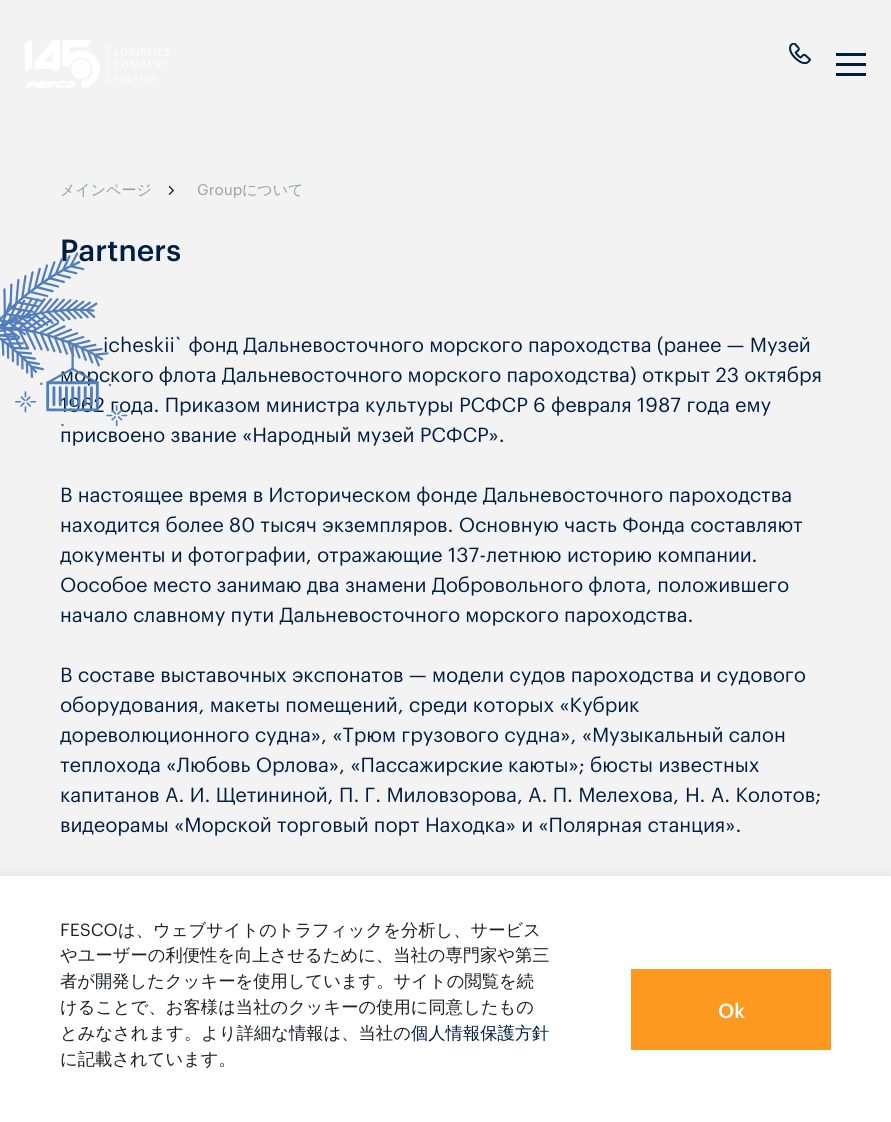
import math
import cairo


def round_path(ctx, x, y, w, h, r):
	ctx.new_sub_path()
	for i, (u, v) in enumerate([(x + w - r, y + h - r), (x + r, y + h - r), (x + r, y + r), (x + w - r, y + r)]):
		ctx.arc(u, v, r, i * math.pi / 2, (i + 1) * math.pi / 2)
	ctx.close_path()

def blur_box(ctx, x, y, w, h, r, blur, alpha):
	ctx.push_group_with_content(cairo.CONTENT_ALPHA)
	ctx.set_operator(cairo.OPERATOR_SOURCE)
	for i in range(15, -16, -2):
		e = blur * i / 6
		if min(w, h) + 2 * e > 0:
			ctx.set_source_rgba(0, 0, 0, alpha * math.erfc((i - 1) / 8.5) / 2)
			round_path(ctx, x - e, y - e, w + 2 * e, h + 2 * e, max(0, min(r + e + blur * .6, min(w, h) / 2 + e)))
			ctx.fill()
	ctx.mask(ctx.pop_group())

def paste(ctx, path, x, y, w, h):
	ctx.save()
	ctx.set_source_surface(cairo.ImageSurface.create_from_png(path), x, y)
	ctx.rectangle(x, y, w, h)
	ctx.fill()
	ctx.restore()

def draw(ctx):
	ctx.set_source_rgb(0.953, 0.953, 0.953)
	ctx.paint()
	paste(ctx, 'media/1.png', 25, 40, 144, 48)
	paste(ctx, 'media/2.png', 789, 43, 22, 22)
	ctx.set_source_rgb(0, 0.118, 0.259)
	ctx.rectangle(836, 73, 30, 3)
	ctx.rectangle(836, 53, 30, 3)
	ctx.rectangle(836, 63, 30, 3)
	ctx.fill()
	ctx.select_font_face('WenQuanYi Zen Hei Medium')
	ctx.set_font_size(15)
	ctx.set_source_rgb(0.573, 0.62, 0.675)
	ctx.move_to(60, 195)
	ctx.show_text('メインページ')
	paste(ctx, 'media/3.png', 168, 185, 6, 10)
	ctx.select_font_face('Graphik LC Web')
	ctx.move_to(197, 195)
	ctx.show_text('Group')
	ctx.select_font_face('WenQuanYi Zen Hei Medium')
	ctx.move_to(242, 195)
	ctx.show_text('について')
	ctx.select_font_face('Graphik LC Web Medium')
	ctx.set_font_size(30)
	ctx.set_source_rgb(0, 0.118, 0.259)
	ctx.move_to(60, 261)
	ctx.show_text('Partners')
	ctx.select_font_face('Graphik LC Web')
	ctx.set_font_size(20)
	for x, y, s in [
		(103, 352, 'icheskii` фонд Дальневосточного морского пароходства (ранее — Музей'),
		(60, 382, 'морского флота Дальневосточного морского пароходства) открыт 23 октября'),
		(60, 412, '1962 года. Приказом министра культуры РСФСР 6 февраля 1987 года ему'),
		(60, 442, 'присвоено звание «Народный музей РСФСР».'),
		(60, 502, 'В настоящее время в Историческом фонде Дальневосточного пароходства'),
		(60, 532, 'находится более 80 тысяч экземпляров. Основную часть Фонда составляют'),
		(60, 562, 'документы и фотографии, отражающие'),
		(448, 562, '137-летнюю'),
		(567, 562, 'историю компании.'),
		(60, 592, 'Оособое место занимаю два знамени Добровольного флота, положившего'),
		(60, 622, 'начало славному пути Дальневосточного морского пароходства.'),
		(60, 682, 'В составе выставочных экспонатов — модели судов пароходства и судового'),
		(60, 712, 'оборудования, макеты помещений, среди которых «Кубрик'),
		(60, 742, 'дореволюционного судна», «Трюм грузового судна», «Музыкальный салон'),
		(60, 772, 'теплохода «Любовь Орлова», «Пассажирские каюты»; бюсты известных'),
		(60, 802, 'капитанов'),
		(165, 802, 'А. И. Щетининой,'),
		(339, 802, 'П. Г. Миловзорова,'),
		(528, 802, 'А. П. Мелехова,'),
		(685, 802, 'Н. А. Колотов;'),
		(60, 832, 'видеорамы «Морской торговый порт Находка» и «Полярная станция».'),
	]:
		ctx.move_to(x, y)
		ctx.show_text(s)
	ctx.set_source_rgb(0.118, 0.122, 0.149)
	blur_box(ctx, 0, 876, 891, 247, 0, 6, 0.1)
	ctx.set_source_rgb(1, 1, 1)
	ctx.rectangle(0, 876, 891, 246)
	ctx.fill()
	ctx.set_font_size(17.3)
	ctx.set_source_rgb(0.118, 0.122, 0.149)
	ctx.move_to(60, 936)
	ctx.show_text('FESCO')
	ctx.select_font_face('WenQuanYi Zen Hei Medium')
	for x, y, s in [
		(118, 936, 'は、ウェブサイトのトラフィックを分析し、サービス'),
		(60, 961, 'やユーザーの利便性を向上させるために、当社の専門家や第三'),
		(60, 987, '者が開発したクッキーを使用しています。サイトの閲覧を続'),
		(60, 1013, 'けることで、お客様は当社のクッキーの使用に同意したもの'),
		(60, 1039, 'とみなされます。より詳細な情報は、当社の'),
	]:
		ctx.move_to(x, y)
		ctx.show_text(s)
	ctx.set_source_rgb(0, 0.118, 0.259)
	ctx.move_to(411, 1039)
	ctx.show_text('個人情報保護方針')
	ctx.set_source_rgb(0.118, 0.122, 0.149)
	ctx.move_to(60, 1065)
	ctx.show_text('に記載されています。')
	ctx.set_source_rgb(0.996, 0.6, 0.122)
	ctx.rectangle(631, 969, 200, 81)
	ctx.fill()
	ctx.select_font_face('Graphik LC Web Medium')
	ctx.set_font_size(20)
	ctx.set_source_rgb(1, 1, 1)
	ctx.move_to(718, 1018)
	ctx.show_text('Ok')
	paste(ctx, 'media/4.png', 0, 252, 128, 175)


surface = cairo.ImageSurface(cairo.FORMAT_RGB24, 891, 1122)
ctx = cairo.Context(surface)
options = cairo.FontOptions()
options.set_hint_metrics(cairo.HINT_METRICS_OFF)
options.set_hint_style(cairo.HINT_STYLE_NONE)
ctx.set_font_options(options)
ctx.set_miter_limit(4)
draw(ctx)
surface.write_to_png('image.png')
